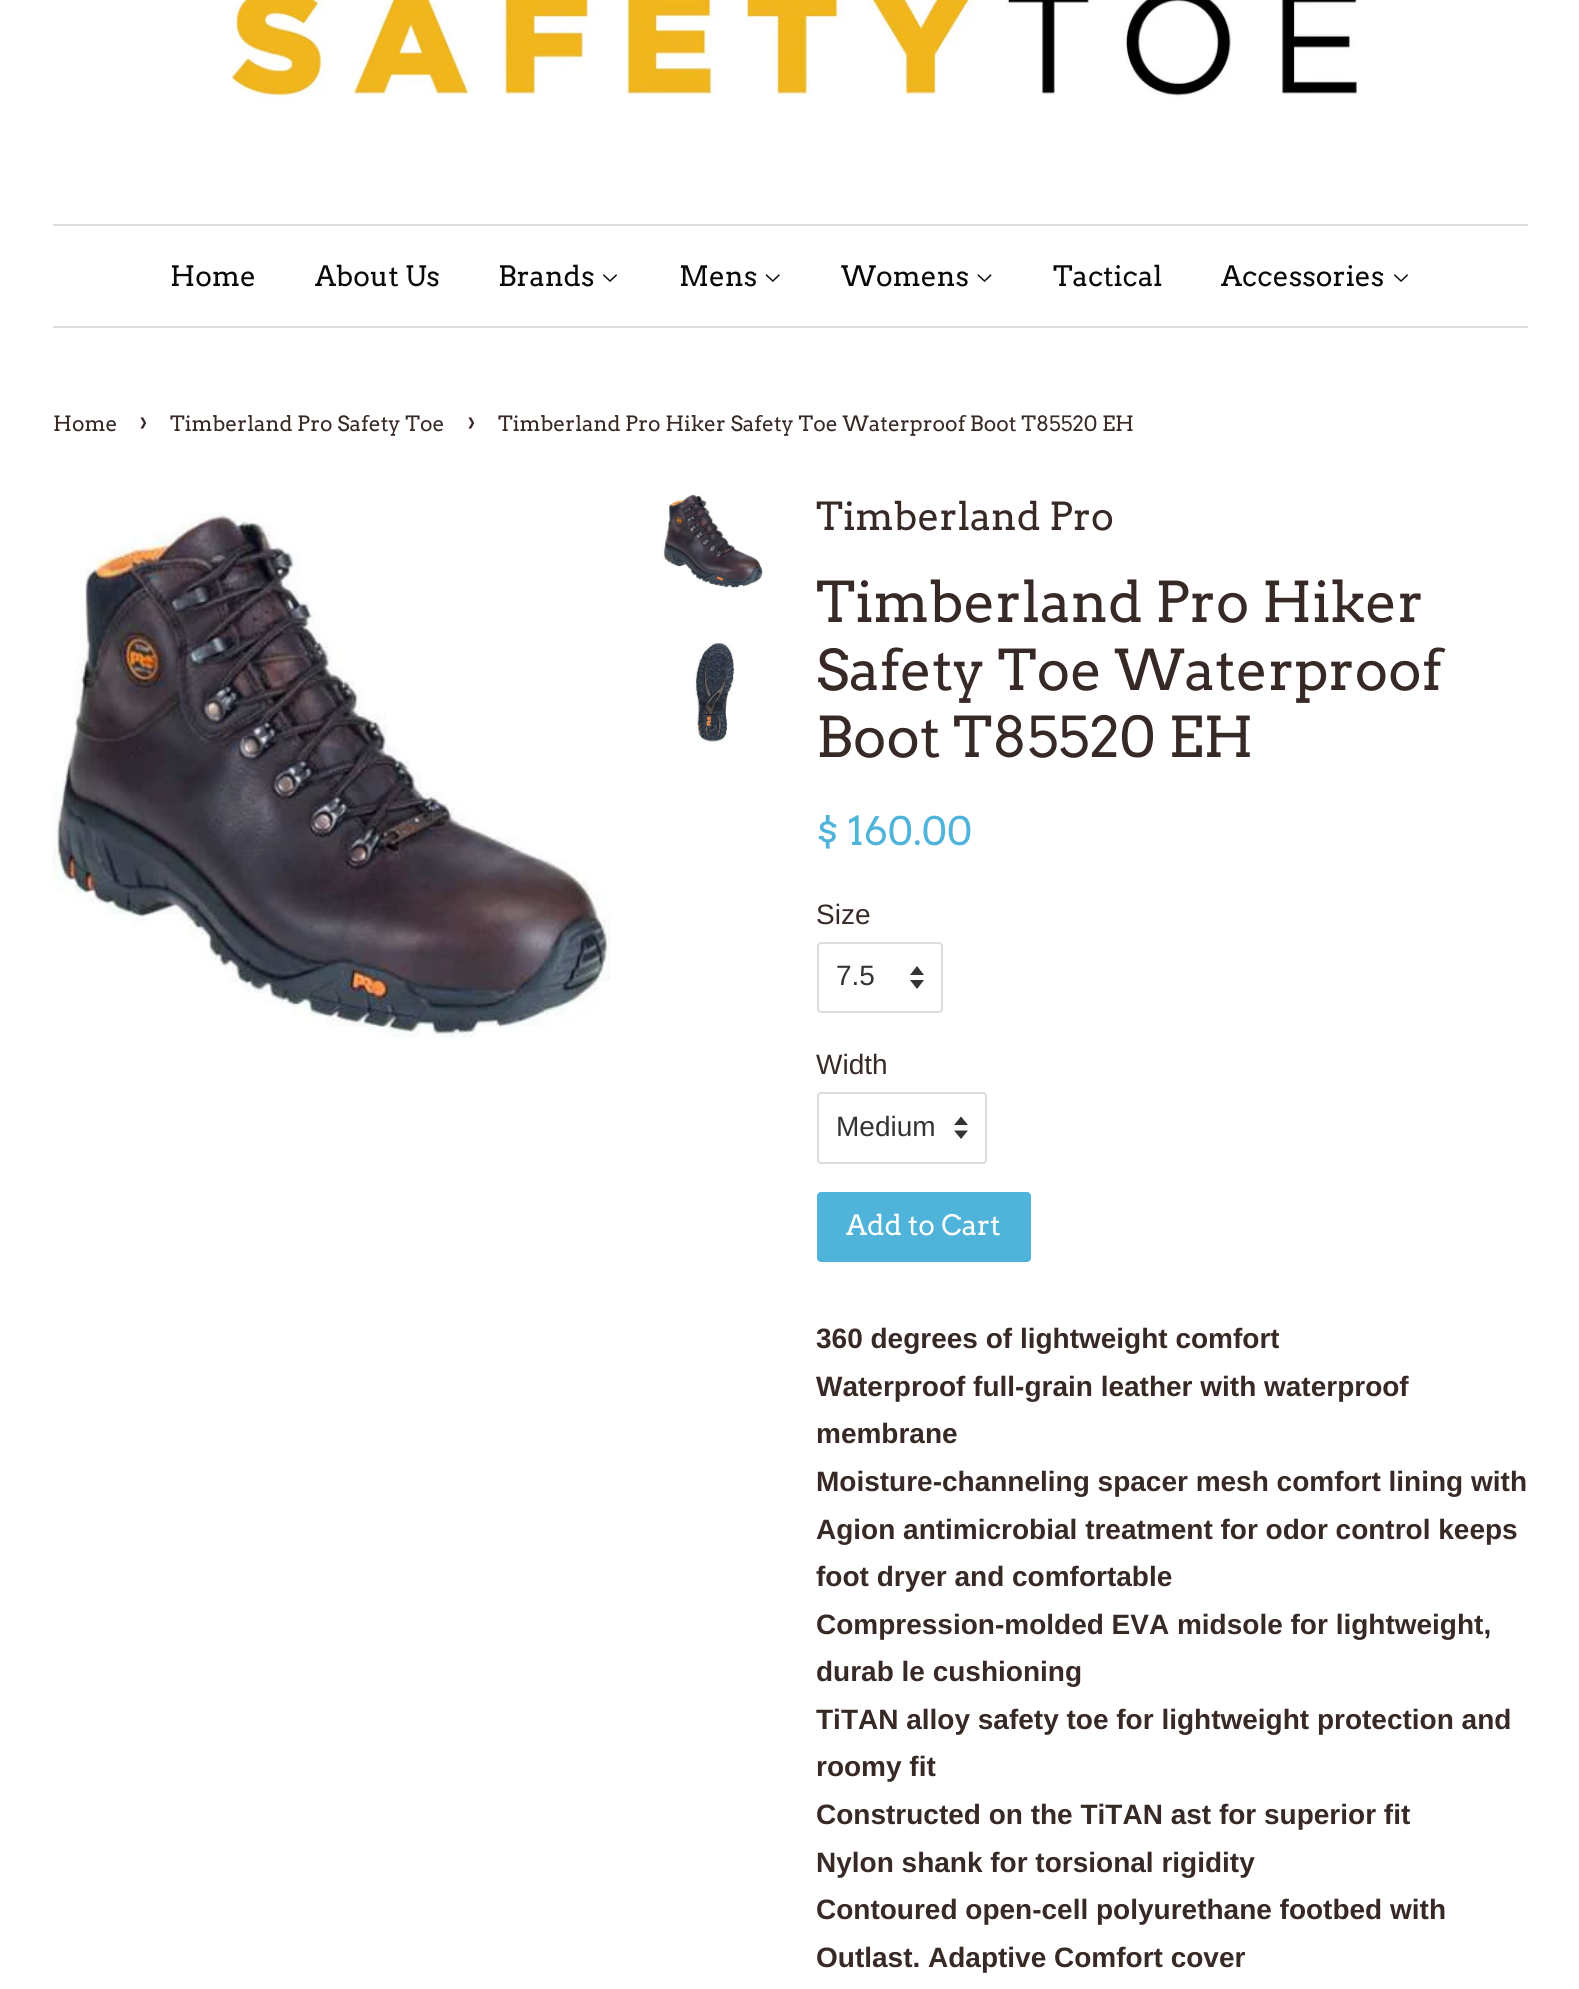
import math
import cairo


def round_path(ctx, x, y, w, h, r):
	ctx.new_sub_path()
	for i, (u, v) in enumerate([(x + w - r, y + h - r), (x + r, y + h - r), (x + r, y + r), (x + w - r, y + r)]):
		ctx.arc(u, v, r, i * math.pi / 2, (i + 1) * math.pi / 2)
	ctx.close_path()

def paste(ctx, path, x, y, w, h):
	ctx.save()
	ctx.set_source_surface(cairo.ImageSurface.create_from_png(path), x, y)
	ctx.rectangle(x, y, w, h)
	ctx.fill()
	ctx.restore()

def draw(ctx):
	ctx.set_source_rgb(1, 1, 1)
	ctx.paint()
	paste(ctx, 'media/1.png', 229, 0, 1129, 102)
	ctx.set_source_rgb(0.867, 0.867, 0.867)
	ctx.rectangle(53, 224, 1475, 2)
	ctx.fill()
	ctx.rectangle(53, 326, 1475, 2)
	ctx.fill()
	ctx.select_font_face('Arvo')
	ctx.set_font_size(28)
	ctx.set_source_rgb(0.039, 0.039, 0.039)
	for x, y, s in [
		(170, 286, 'Home'),
		(315, 286, 'About Us'),
		(498, 286, 'Brands'),
	]:
		ctx.move_to(x, y)
		ctx.show_text(s)
	paste(ctx, 'media/2.png', 603, 274, 14, 8)
	ctx.move_to(679, 286)
	ctx.show_text('Mens')
	paste(ctx, 'media/3.png', 765, 274, 15, 8)
	ctx.move_to(841, 286)
	ctx.show_text('Womens')
	paste(ctx, 'media/4.png', 977, 274, 15, 8)
	ctx.move_to(1053, 286)
	ctx.show_text('Tactical')
	ctx.move_to(1221, 286)
	ctx.show_text('Accessories')
	paste(ctx, 'media/2.png', 1394, 274, 14, 8)
	ctx.set_font_size(21)
	ctx.set_source_rgb(0.216, 0.161, 0.149)
	ctx.move_to(53, 431)
	ctx.show_text('Home')
	ctx.set_font_size(29)
	ctx.move_to(139, 431)
	ctx.show_text('›')
	ctx.set_font_size(21)
	ctx.move_to(170, 431)
	ctx.show_text('Timberland Pro Safety Toe')
	ctx.set_font_size(29)
	ctx.move_to(467, 431)
	ctx.show_text('›')
	ctx.set_font_size(21)
	ctx.move_to(498, 431)
	ctx.show_text('Timberland Pro Hiker Safety Toe Waterproof Boot T85520 EH')
	paste(ctx, 'media/5.png', 52, 512, 559, 526)
	paste(ctx, 'media/6.png', 663, 494, 100, 94)
	paste(ctx, 'media/7.png', 694, 642, 41, 100)
	ctx.set_font_size(38.5)
	ctx.move_to(816, 530)
	ctx.show_text('Timberland Pro')
	ctx.set_font_size(56)
	for x, y, s in [
		(816, 622, 'Timberland Pro Hiker'),
		(816, 690, 'Safety Toe Waterproof'),
		(816, 757, 'Boot T85520 EH'),
	]:
		ctx.move_to(x, y)
		ctx.show_text(s)
	ctx.set_font_size(39)
	ctx.set_source_rgb(0.314, 0.702, 0.855)
	ctx.move_to(816, 845)
	ctx.show_text('$ 160.00')
	ctx.select_font_face('Liberation Sans')
	ctx.set_font_size(28)
	ctx.set_source_rgb(0.216, 0.161, 0.149)
	ctx.move_to(816, 924)
	ctx.show_text('Size')
	ctx.set_source_rgb(0.2, 0.2, 0.2)
	ctx.new_path()
	ctx.move_to(910, 980)
	ctx.line_to(917, 989)
	ctx.line_to(924, 980)
	ctx.close_path()
	ctx.move_to(917, 966)
	ctx.line_to(910, 975)
	ctx.line_to(924, 975)
	ctx.close_path()
	ctx.fill()
	round_path(ctx, 818, 943, 124, 69, 3)
	ctx.set_source_rgb(0.867, 0.867, 0.867)
	ctx.stroke()
	ctx.set_source_rgb(0.2, 0.2, 0.2)
	ctx.move_to(836, 985)
	ctx.show_text('7.5')
	ctx.set_source_rgb(0.216, 0.161, 0.149)
	ctx.move_to(816, 1074)
	ctx.show_text('Width')
	ctx.set_source_rgb(0.2, 0.2, 0.2)
	ctx.new_path()
	ctx.move_to(954, 1130.5)
	ctx.line_to(961, 1139)
	ctx.line_to(968, 1130.5)
	ctx.close_path()
	ctx.move_to(961, 1116.5)
	ctx.line_to(954, 1125)
	ctx.line_to(968, 1125)
	ctx.close_path()
	ctx.fill()
	round_path(ctx, 818, 1093, 168, 70, 3)
	ctx.set_source_rgb(0.867, 0.867, 0.867)
	ctx.stroke()
	ctx.set_source_rgb(0.2, 0.2, 0.2)
	ctx.move_to(836, 1136)
	ctx.show_text('Medium')
	ctx.set_source_rgb(0.314, 0.702, 0.855)
	round_path(ctx, 817, 1192, 214, 70, 4)
	ctx.fill()
	ctx.select_font_face('Arvo')
	ctx.set_source_rgb(1, 1, 1)
	ctx.move_to(846, 1235)
	ctx.show_text('Add to Cart')
	ctx.select_font_face('Liberation Sans', cairo.FONT_SLANT_NORMAL, cairo.FONT_WEIGHT_BOLD)
	ctx.set_source_rgb(0.216, 0.161, 0.149)
	for x, y, s in [
		(816, 1348, '360 degrees of lightweight comfort'),
		(816, 1396, 'Waterproof full-grain leather with waterproof'),
		(816, 1443, 'membrane'),
		(816, 1491, 'Moisture-channeling spacer mesh comfort lining with'),
		(816, 1539, 'Agion antimicrobial treatment for odor control keeps'),
		(816, 1586, 'foot dryer and comfortable'),
		(816, 1634, 'Compression-molded EVA midsole for lightweight,'),
		(816, 1681, 'durab le cushioning'),
		(816, 1729, 'TiTAN alloy safety toe for lightweight protection and'),
		(816, 1776, 'roomy fit'),
		(816, 1824, 'Constructed on the TiTAN ast for superior fit'),
		(816, 1872, 'Nylon shank for torsional rigidity'),
		(816, 1919, 'Contoured open-cell polyurethane footbed with'),
		(816, 1967, 'Outlast. Adaptive Comfort cover'),
	]:
		ctx.move_to(x, y)
		ctx.show_text(s)


surface = cairo.ImageSurface(cairo.FORMAT_RGB24, 1579, 1989)
ctx = cairo.Context(surface)
options = cairo.FontOptions()
options.set_hint_metrics(cairo.HINT_METRICS_OFF)
options.set_hint_style(cairo.HINT_STYLE_NONE)
ctx.set_font_options(options)
ctx.set_miter_limit(4)
draw(ctx)
surface.write_to_png('image.png')
